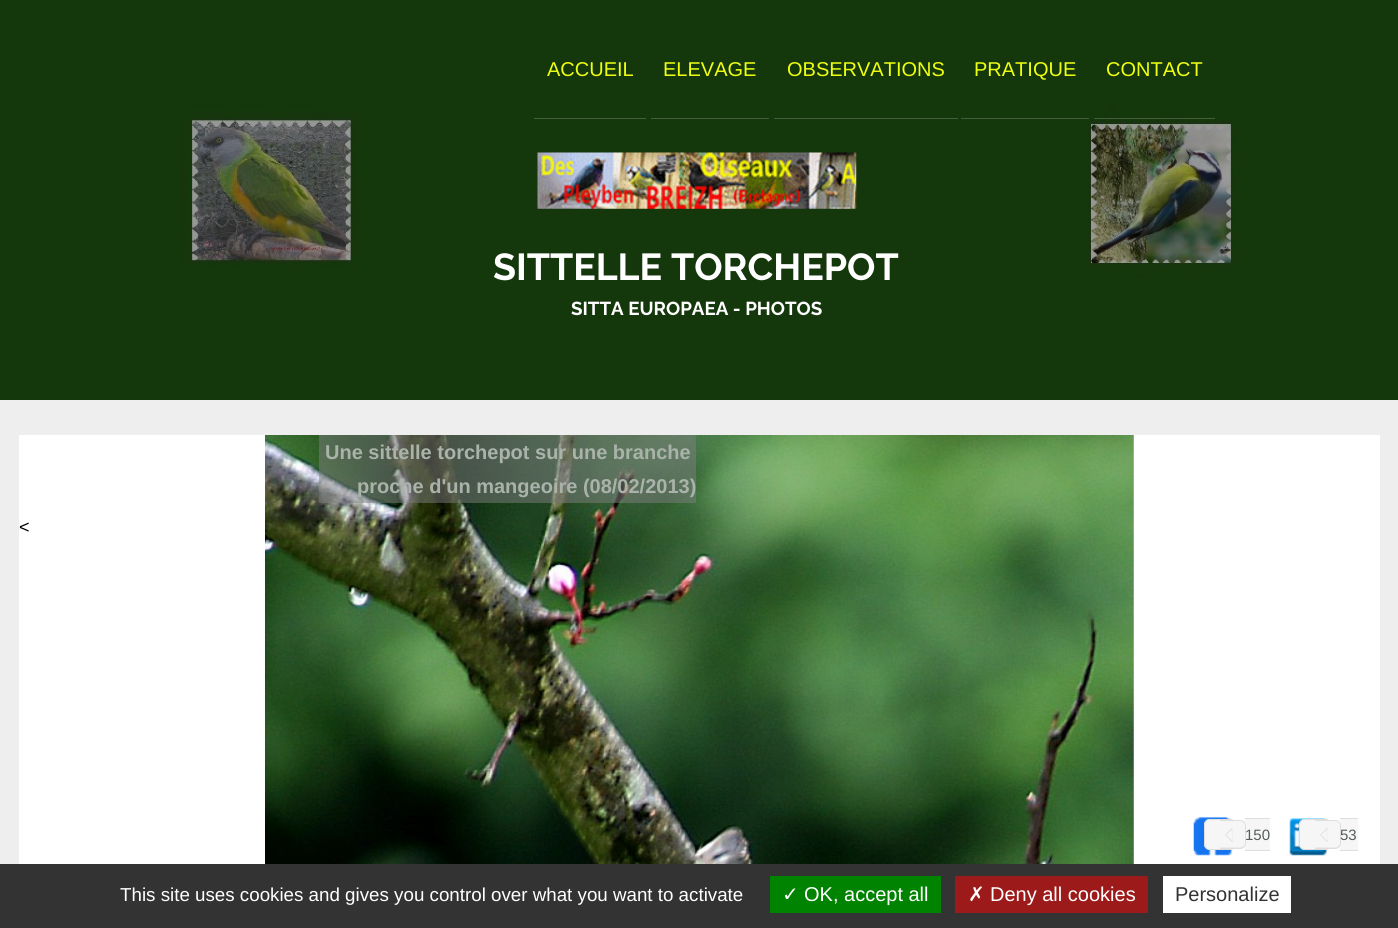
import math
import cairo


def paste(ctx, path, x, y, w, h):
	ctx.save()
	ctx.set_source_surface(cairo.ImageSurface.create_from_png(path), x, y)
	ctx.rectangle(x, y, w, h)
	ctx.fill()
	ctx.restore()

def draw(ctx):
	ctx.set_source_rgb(0.933, 0.933, 0.933)
	ctx.paint()
	paste(ctx, 'media/1.png', 0, 0, 1398, 400)
	ctx.select_font_face('Liberation Sans')
	ctx.set_font_size(20)
	ctx.set_source_rgb(0.933, 1, 0.071)
	ctx.move_to(547, 76)
	ctx.show_text('ACCUEIL')
	ctx.set_source_rgb(0.267, 0.373, 0.239)
	ctx.rectangle(534, 118, 112, 1)
	ctx.fill()
	ctx.set_source_rgb(0.933, 1, 0.071)
	ctx.move_to(663, 76)
	ctx.show_text('ELEVAGE')
	ctx.set_source_rgb(0.267, 0.373, 0.239)
	ctx.rectangle(651, 118, 118, 1)
	ctx.fill()
	ctx.set_source_rgb(0.933, 1, 0.071)
	ctx.move_to(787, 76)
	ctx.show_text('OBSERVATIONS')
	ctx.set_source_rgb(0.267, 0.373, 0.239)
	ctx.rectangle(774, 118, 184, 1)
	ctx.fill()
	ctx.set_source_rgb(0.933, 1, 0.071)
	ctx.move_to(974, 76)
	ctx.show_text('PRATIQUE')
	ctx.set_source_rgb(0.267, 0.373, 0.239)
	ctx.rectangle(961, 118, 128, 1)
	ctx.fill()
	ctx.set_source_rgb(0.933, 1, 0.071)
	ctx.move_to(1106, 76)
	ctx.show_text('CONTACT')
	ctx.set_source_rgba(1, 1, 1, 0.2)
	ctx.rectangle(1094, 118, 121, 1)
	ctx.fill()
	paste(ctx, 'media/2.png', 537, 152, 320, 57)
	ctx.select_font_face('Raleway', cairo.FONT_SLANT_NORMAL, cairo.FONT_WEIGHT_BOLD)
	ctx.set_font_size(37.5)
	ctx.set_source_rgb(1, 1, 1)
	ctx.move_to(493, 280)
	ctx.show_text('SITTELLE TORCHEPOT')
	ctx.set_font_size(18.75)
	ctx.move_to(571, 315)
	ctx.show_text('SITTA EUROPAEA - PHOTOS')
	ctx.rectangle(19, 435, 1361, 429)
	ctx.fill()
	ctx.select_font_face('Liberation Sans')
	ctx.set_font_size(18)
	ctx.set_source_rgb(0, 0, 0)
	ctx.move_to(19, 533)
	ctx.show_text('<')
	paste(ctx, 'media/3.png', 1193, 817, 39, 39)
	ctx.set_source_rgb(0.961, 0.961, 0.961)
	ctx.new_path()
	ctx.move_to(1210, 819)
	ctx.line_to(1233, 819)
	ctx.line_to(1233, 850)
	ctx.line_to(1210, 850)
	ctx.curve_to(1206.5, 850, 1204, 847.5, 1204, 844)
	ctx.line_to(1204, 825)
	ctx.curve_to(1204, 821.5, 1206.5, 819, 1210, 819)
	ctx.close_path()
	ctx.fill()
	ctx.set_source_rgb(0.878, 0.867, 0.867)
	ctx.set_fill_rule(cairo.FILL_RULE_EVEN_ODD)
	ctx.new_path()
	ctx.move_to(1210, 819)
	ctx.line_to(1232.5, 819)
	ctx.line_to(1232.5, 850)
	ctx.line_to(1210, 850)
	ctx.curve_to(1206.5, 850, 1204, 847, 1204, 844)
	ctx.line_to(1204, 825)
	ctx.curve_to(1204, 821.5, 1206.5, 819, 1210, 819)
	ctx.close_path()
	ctx.move_to(1210, 820)
	ctx.line_to(1232.5, 820)
	ctx.line_to(1232.5, 849)
	ctx.line_to(1210, 849)
	ctx.curve_to(1207, 849, 1205, 846.5, 1205, 844)
	ctx.line_to(1205, 825)
	ctx.curve_to(1205, 822, 1207, 820, 1210, 820)
	ctx.close_path()
	ctx.fill()
	ctx.set_source_rgb(0.961, 0.961, 0.961)
	ctx.rectangle(1245, 819, 25, 31)
	ctx.fill()
	ctx.set_source_rgb(0.878, 0.867, 0.867)
	ctx.rectangle(1245, 818, 25, 1)
	ctx.rectangle(1245, 850, 25, 1)
	ctx.fill()
	ctx.set_source_rgb(0.961, 0.961, 0.961)
	ctx.new_path()
	ctx.move_to(1220, 820)
	ctx.line_to(1240, 820)
	ctx.curve_to(1243.5, 820, 1246, 822.5, 1246, 826)
	ctx.line_to(1246, 843)
	ctx.curve_to(1246, 846.5, 1243.5, 849, 1240, 849)
	ctx.line_to(1220, 849)
	ctx.close_path()
	ctx.fill()
	ctx.set_source_rgb(0.878, 0.867, 0.867)
	ctx.new_path()
	ctx.move_to(1220, 820)
	ctx.line_to(1240, 820)
	ctx.curve_to(1243.5, 820, 1246, 823, 1246, 826)
	ctx.line_to(1246, 842.5)
	ctx.curve_to(1246, 846, 1243.5, 849, 1240, 849)
	ctx.line_to(1220, 849)
	ctx.close_path()
	ctx.move_to(1220, 821)
	ctx.line_to(1240, 821)
	ctx.curve_to(1243, 821, 1245, 823.5, 1245, 826)
	ctx.line_to(1245, 842.5)
	ctx.curve_to(1245, 845.5, 1243, 847.5, 1240, 847.5)
	ctx.line_to(1220, 847.5)
	ctx.close_path()
	ctx.fill()
	ctx.set_fill_rule(cairo.FILL_RULE_WINDING)
	ctx.new_path()
	ctx.move_to(1232.5, 827.5)
	ctx.line_to(1232.5, 842.5)
	ctx.line_to(1225, 835)
	ctx.close_path()
	ctx.fill()
	ctx.set_source_rgb(0.961, 0.961, 0.961)
	ctx.new_path()
	ctx.move_to(1232.5, 829)
	ctx.line_to(1232.5, 841)
	ctx.line_to(1226, 835)
	ctx.close_path()
	ctx.fill()
	ctx.set_font_size(15)
	ctx.set_source_rgb(0.333, 0.369, 0.345)
	ctx.move_to(1245, 840)
	ctx.show_text('150')
	paste(ctx, 'media/4.png', 1289, 818, 38, 38)
	ctx.set_source_rgb(0.961, 0.961, 0.961)
	ctx.new_path()
	ctx.move_to(1305, 819)
	ctx.line_to(1328, 819)
	ctx.line_to(1328, 850)
	ctx.line_to(1305, 850)
	ctx.curve_to(1301.5, 850, 1299, 847.5, 1299, 844)
	ctx.line_to(1299, 825)
	ctx.curve_to(1299, 821.5, 1301.5, 819, 1305, 819)
	ctx.close_path()
	ctx.fill()
	ctx.set_source_rgb(0.878, 0.867, 0.867)
	ctx.set_fill_rule(cairo.FILL_RULE_EVEN_ODD)
	ctx.new_path()
	ctx.move_to(1305, 819)
	ctx.line_to(1327.5, 819)
	ctx.line_to(1327.5, 850)
	ctx.line_to(1305, 850)
	ctx.curve_to(1301.5, 850, 1299, 847, 1299, 844)
	ctx.line_to(1299, 825)
	ctx.curve_to(1299, 821.5, 1301.5, 819, 1305, 819)
	ctx.close_path()
	ctx.move_to(1305, 820)
	ctx.line_to(1327.5, 820)
	ctx.line_to(1327.5, 849)
	ctx.line_to(1305, 849)
	ctx.curve_to(1302, 849, 1300, 846.5, 1300, 844)
	ctx.line_to(1300, 825)
	ctx.curve_to(1300, 822, 1302, 820, 1305, 820)
	ctx.close_path()
	ctx.fill()
	ctx.set_source_rgb(0.961, 0.961, 0.961)
	ctx.rectangle(1340, 819, 18, 31)
	ctx.fill()
	ctx.set_source_rgb(0.878, 0.867, 0.867)
	ctx.rectangle(1340, 818, 18, 1)
	ctx.rectangle(1340, 850, 18, 1)
	ctx.fill()
	ctx.set_source_rgb(0.961, 0.961, 0.961)
	ctx.new_path()
	ctx.move_to(1315, 820)
	ctx.line_to(1335, 820)
	ctx.curve_to(1338.5, 820, 1341, 822.5, 1341, 826)
	ctx.line_to(1341, 843)
	ctx.curve_to(1341, 846.5, 1338.5, 849, 1335, 849)
	ctx.line_to(1315, 849)
	ctx.close_path()
	ctx.fill()
	ctx.set_source_rgb(0.878, 0.867, 0.867)
	ctx.new_path()
	ctx.move_to(1315, 820)
	ctx.line_to(1335, 820)
	ctx.curve_to(1338.5, 820, 1341, 823, 1341, 826)
	ctx.line_to(1341, 842.5)
	ctx.curve_to(1341, 846, 1338.5, 849, 1335, 849)
	ctx.line_to(1315, 849)
	ctx.close_path()
	ctx.move_to(1315, 821)
	ctx.line_to(1335, 821)
	ctx.curve_to(1338, 821, 1340, 823.5, 1340, 826)
	ctx.line_to(1340, 842.5)
	ctx.curve_to(1340, 845.5, 1338, 847.5, 1335, 847.5)
	ctx.line_to(1315, 847.5)
	ctx.close_path()
	ctx.fill()
	ctx.set_fill_rule(cairo.FILL_RULE_WINDING)
	ctx.new_path()
	ctx.move_to(1327.5, 827.5)
	ctx.line_to(1327.5, 842.5)
	ctx.line_to(1320, 835)
	ctx.close_path()
	ctx.fill()
	ctx.set_source_rgb(0.961, 0.961, 0.961)
	ctx.new_path()
	ctx.move_to(1327.5, 829)
	ctx.line_to(1327.5, 841)
	ctx.line_to(1321, 835)
	ctx.close_path()
	ctx.fill()
	ctx.set_source_rgb(0.333, 0.369, 0.345)
	ctx.move_to(1340, 840)
	ctx.show_text('53')
	paste(ctx, 'media/5.png', 265, 435, 869, 429)
	ctx.set_source_rgba(0.502, 0.502, 0.502, 0.5)
	ctx.rectangle(319, 435, 377, 68)
	ctx.fill()
	ctx.select_font_face('Liberation Sans', cairo.FONT_SLANT_NORMAL, cairo.FONT_WEIGHT_BOLD)
	ctx.set_font_size(20)
	ctx.set_source_rgb(0.667, 0.702, 0.667)
	ctx.move_to(325, 459)
	ctx.show_text('Une sittelle torchepot sur une branche')
	ctx.move_to(357, 493)
	ctx.show_text('proche d\'un mangeoire (08/02/2013)')
	ctx.set_source_rgb(0.2, 0.2, 0.2)
	ctx.rectangle(0, 864, 1398, 64)
	ctx.fill()
	ctx.select_font_face('Liberation Sans')
	ctx.set_font_size(18.75)
	ctx.set_source_rgb(1, 1, 1)
	ctx.move_to(120, 901)
	ctx.show_text('This site uses cookies and gives you control over what you want to activate')
	ctx.set_source_rgb(0, 0.514, 0)
	ctx.rectangle(770, 876, 171, 37)
	ctx.fill()
	ctx.select_font_face('DejaVu Sans')
	ctx.set_font_size(20)
	ctx.set_source_rgb(1, 1, 1)
	ctx.move_to(782, 901)
	ctx.show_text('✓')
	ctx.select_font_face('Liberation Sans')
	ctx.move_to(804, 901)
	ctx.show_text('OK, accept all')
	ctx.set_source_rgb(0.612, 0.102, 0.102)
	ctx.rectangle(955, 876, 193, 37)
	ctx.fill()
	ctx.select_font_face('DejaVu Sans')
	ctx.set_source_rgb(1, 1, 1)
	ctx.move_to(968, 901)
	ctx.show_text('✗')
	ctx.select_font_face('Liberation Sans')
	ctx.move_to(990, 901)
	ctx.show_text('Deny all cookies')
	ctx.rectangle(1163, 876, 128, 37)
	ctx.fill()
	ctx.set_source_rgb(0.2, 0.2, 0.2)
	ctx.move_to(1175, 901)
	ctx.show_text('Personalize')


surface = cairo.ImageSurface(cairo.FORMAT_RGB24, 1398, 928)
ctx = cairo.Context(surface)
options = cairo.FontOptions()
options.set_hint_metrics(cairo.HINT_METRICS_OFF)
options.set_hint_style(cairo.HINT_STYLE_NONE)
ctx.set_font_options(options)
ctx.set_miter_limit(4)
draw(ctx)
surface.write_to_png('image.png')
